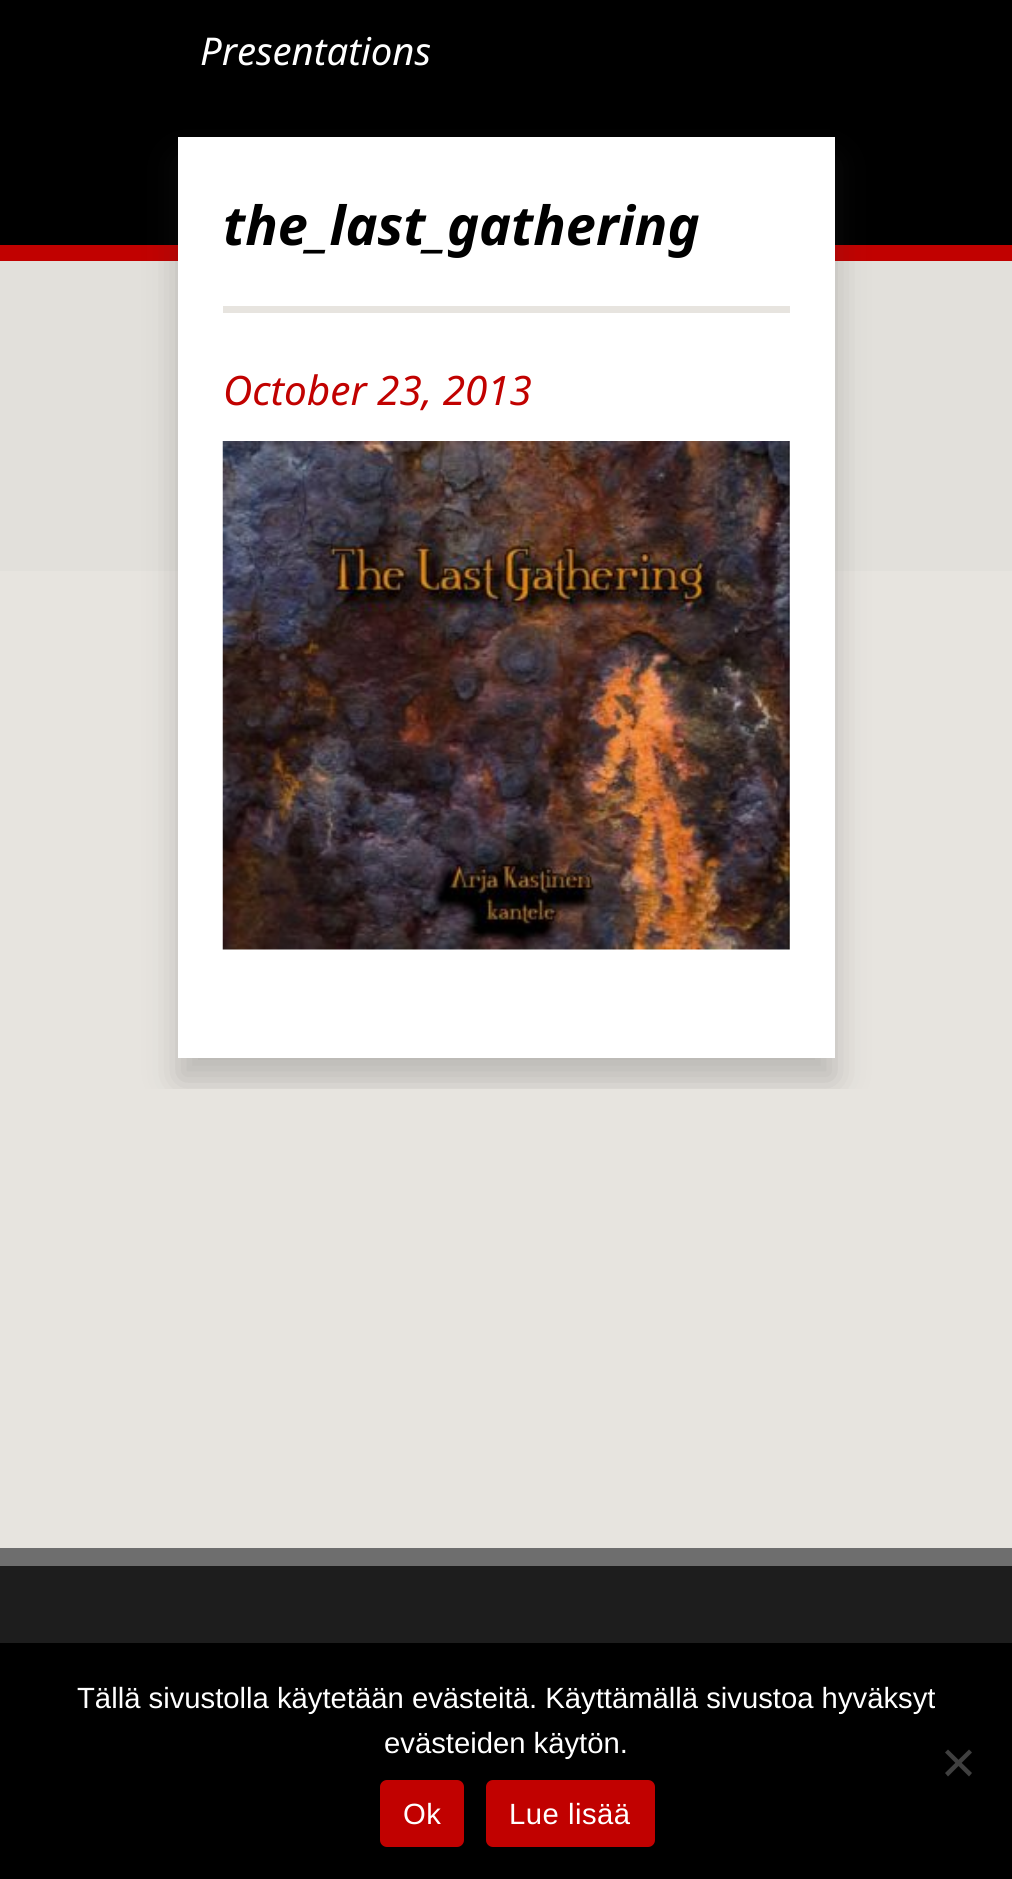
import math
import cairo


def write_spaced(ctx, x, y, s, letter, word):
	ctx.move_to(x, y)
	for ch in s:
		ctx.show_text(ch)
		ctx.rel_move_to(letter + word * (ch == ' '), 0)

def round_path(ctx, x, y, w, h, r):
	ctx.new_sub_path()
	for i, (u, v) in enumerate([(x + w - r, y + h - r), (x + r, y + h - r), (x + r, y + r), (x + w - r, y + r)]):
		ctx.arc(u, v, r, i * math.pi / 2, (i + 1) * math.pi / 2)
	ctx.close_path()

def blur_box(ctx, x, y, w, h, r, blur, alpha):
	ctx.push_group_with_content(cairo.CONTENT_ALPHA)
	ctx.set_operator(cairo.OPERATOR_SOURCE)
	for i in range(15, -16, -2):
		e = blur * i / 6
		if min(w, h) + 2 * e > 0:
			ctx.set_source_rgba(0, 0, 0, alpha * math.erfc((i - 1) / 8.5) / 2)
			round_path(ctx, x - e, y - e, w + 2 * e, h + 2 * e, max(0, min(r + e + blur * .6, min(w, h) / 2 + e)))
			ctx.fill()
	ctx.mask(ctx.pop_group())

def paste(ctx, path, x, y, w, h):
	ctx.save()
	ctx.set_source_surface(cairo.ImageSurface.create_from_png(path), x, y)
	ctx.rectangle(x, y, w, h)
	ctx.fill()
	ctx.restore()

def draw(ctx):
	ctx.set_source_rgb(0.906, 0.894, 0.875)
	ctx.paint()
	ctx.set_source_rgb(0, 0, 0)
	ctx.rectangle(0, 0, 1012, 245)
	ctx.fill()
	ctx.set_source_rgb(0.757, 0.004, 0)
	ctx.rectangle(0, 245, 1012, 16)
	ctx.fill()
	ctx.select_font_face('Noto Sans', cairo.FONT_SLANT_ITALIC)
	ctx.set_font_size(38.25)
	ctx.set_source_rgb(1, 1, 1)
	ctx.move_to(200, 65)
	ctx.show_text('Presentations')
	ctx.set_source_rgb(0.886, 0.878, 0.859)
	ctx.rectangle(0, 261, 1012, 310)
	ctx.fill()
	ctx.save()
	ctx.rectangle(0, 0, 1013, 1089)
	ctx.clip()
	ctx.set_source_rgb(0.196, 0.196, 0.196)
	blur_box(ctx, 178, 160, 657, 920, 0, 17, 0.25)
	ctx.restore()
	ctx.set_source_rgb(1, 1, 1)
	ctx.rectangle(178, 137, 657, 921)
	ctx.fill()
	ctx.set_source_rgb(0.906, 0.894, 0.875)
	ctx.rectangle(223, 306, 567, 7)
	ctx.fill()
	ctx.select_font_face('Noto Sans', cairo.FONT_SLANT_ITALIC, cairo.FONT_WEIGHT_BOLD)
	ctx.set_font_size(54)
	ctx.set_source_rgb(0, 0, 0)
	ctx.move_to(223, 245)
	ctx.show_text('the_last_gathering')
	ctx.select_font_face('Noto Sans', cairo.FONT_SLANT_ITALIC)
	ctx.set_font_size(40.5)
	ctx.set_source_rgb(0.757, 0.004, 0)
	ctx.move_to(223, 405)
	ctx.show_text('October 23, 2013')
	paste(ctx, 'media/1.png', 222, 441, 568, 509)
	ctx.set_source_rgb(0.114, 0.114, 0.114)
	ctx.rectangle(0, 1566, 1012, 77)
	ctx.fill()
	ctx.set_source_rgb(0.431, 0.431, 0.431)
	ctx.rectangle(0, 1548, 1012, 18)
	ctx.fill()
	ctx.set_source_rgb(0, 0, 0)
	ctx.rectangle(0, 1643, 1012, 236)
	ctx.fill()
	ctx.select_font_face('Liberation Sans')
	ctx.set_font_size(29.25)
	ctx.set_source_rgb(1, 1, 1)
	ctx.move_to(77, 1708)
	ctx.show_text('Tällä sivustolla käytetään evästeitä. Käyttämällä sivustoa hyväksyt')
	ctx.move_to(384, 1753)
	ctx.show_text('evästeiden käytön.')
	ctx.set_source_rgb(0.251, 0.251, 0.251)
	ctx.new_path()
	ctx.move_to(969, 1749.5)
	ctx.line_to(972, 1752.5)
	ctx.line_to(948, 1776.5)
	ctx.line_to(945, 1773)
	ctx.close_path()
	ctx.fill()
	ctx.new_path()
	ctx.move_to(945, 1752.5)
	ctx.line_to(948, 1749.5)
	ctx.line_to(972, 1773)
	ctx.line_to(969, 1776.5)
	ctx.close_path()
	ctx.fill()
	ctx.set_source_rgb(0.757, 0.004, 0)
	round_path(ctx, 380, 1780, 84, 67, 7)
	ctx.fill()
	ctx.set_source_rgb(1, 1, 1)
	write_spaced(ctx, 403, 1824, 'Ok', 0.5, 0)
	ctx.set_source_rgb(0.757, 0.004, 0)
	round_path(ctx, 486, 1780, 169, 67, 7)
	ctx.fill()
	ctx.set_source_rgb(1, 1, 1)
	write_spaced(ctx, 509, 1824, 'Lue lisää', 0.5, 0)


surface = cairo.ImageSurface(cairo.FORMAT_RGB24, 1012, 1879)
ctx = cairo.Context(surface)
options = cairo.FontOptions()
options.set_hint_metrics(cairo.HINT_METRICS_OFF)
options.set_hint_style(cairo.HINT_STYLE_NONE)
ctx.set_font_options(options)
ctx.set_miter_limit(4)
draw(ctx)
surface.write_to_png('image.png')
